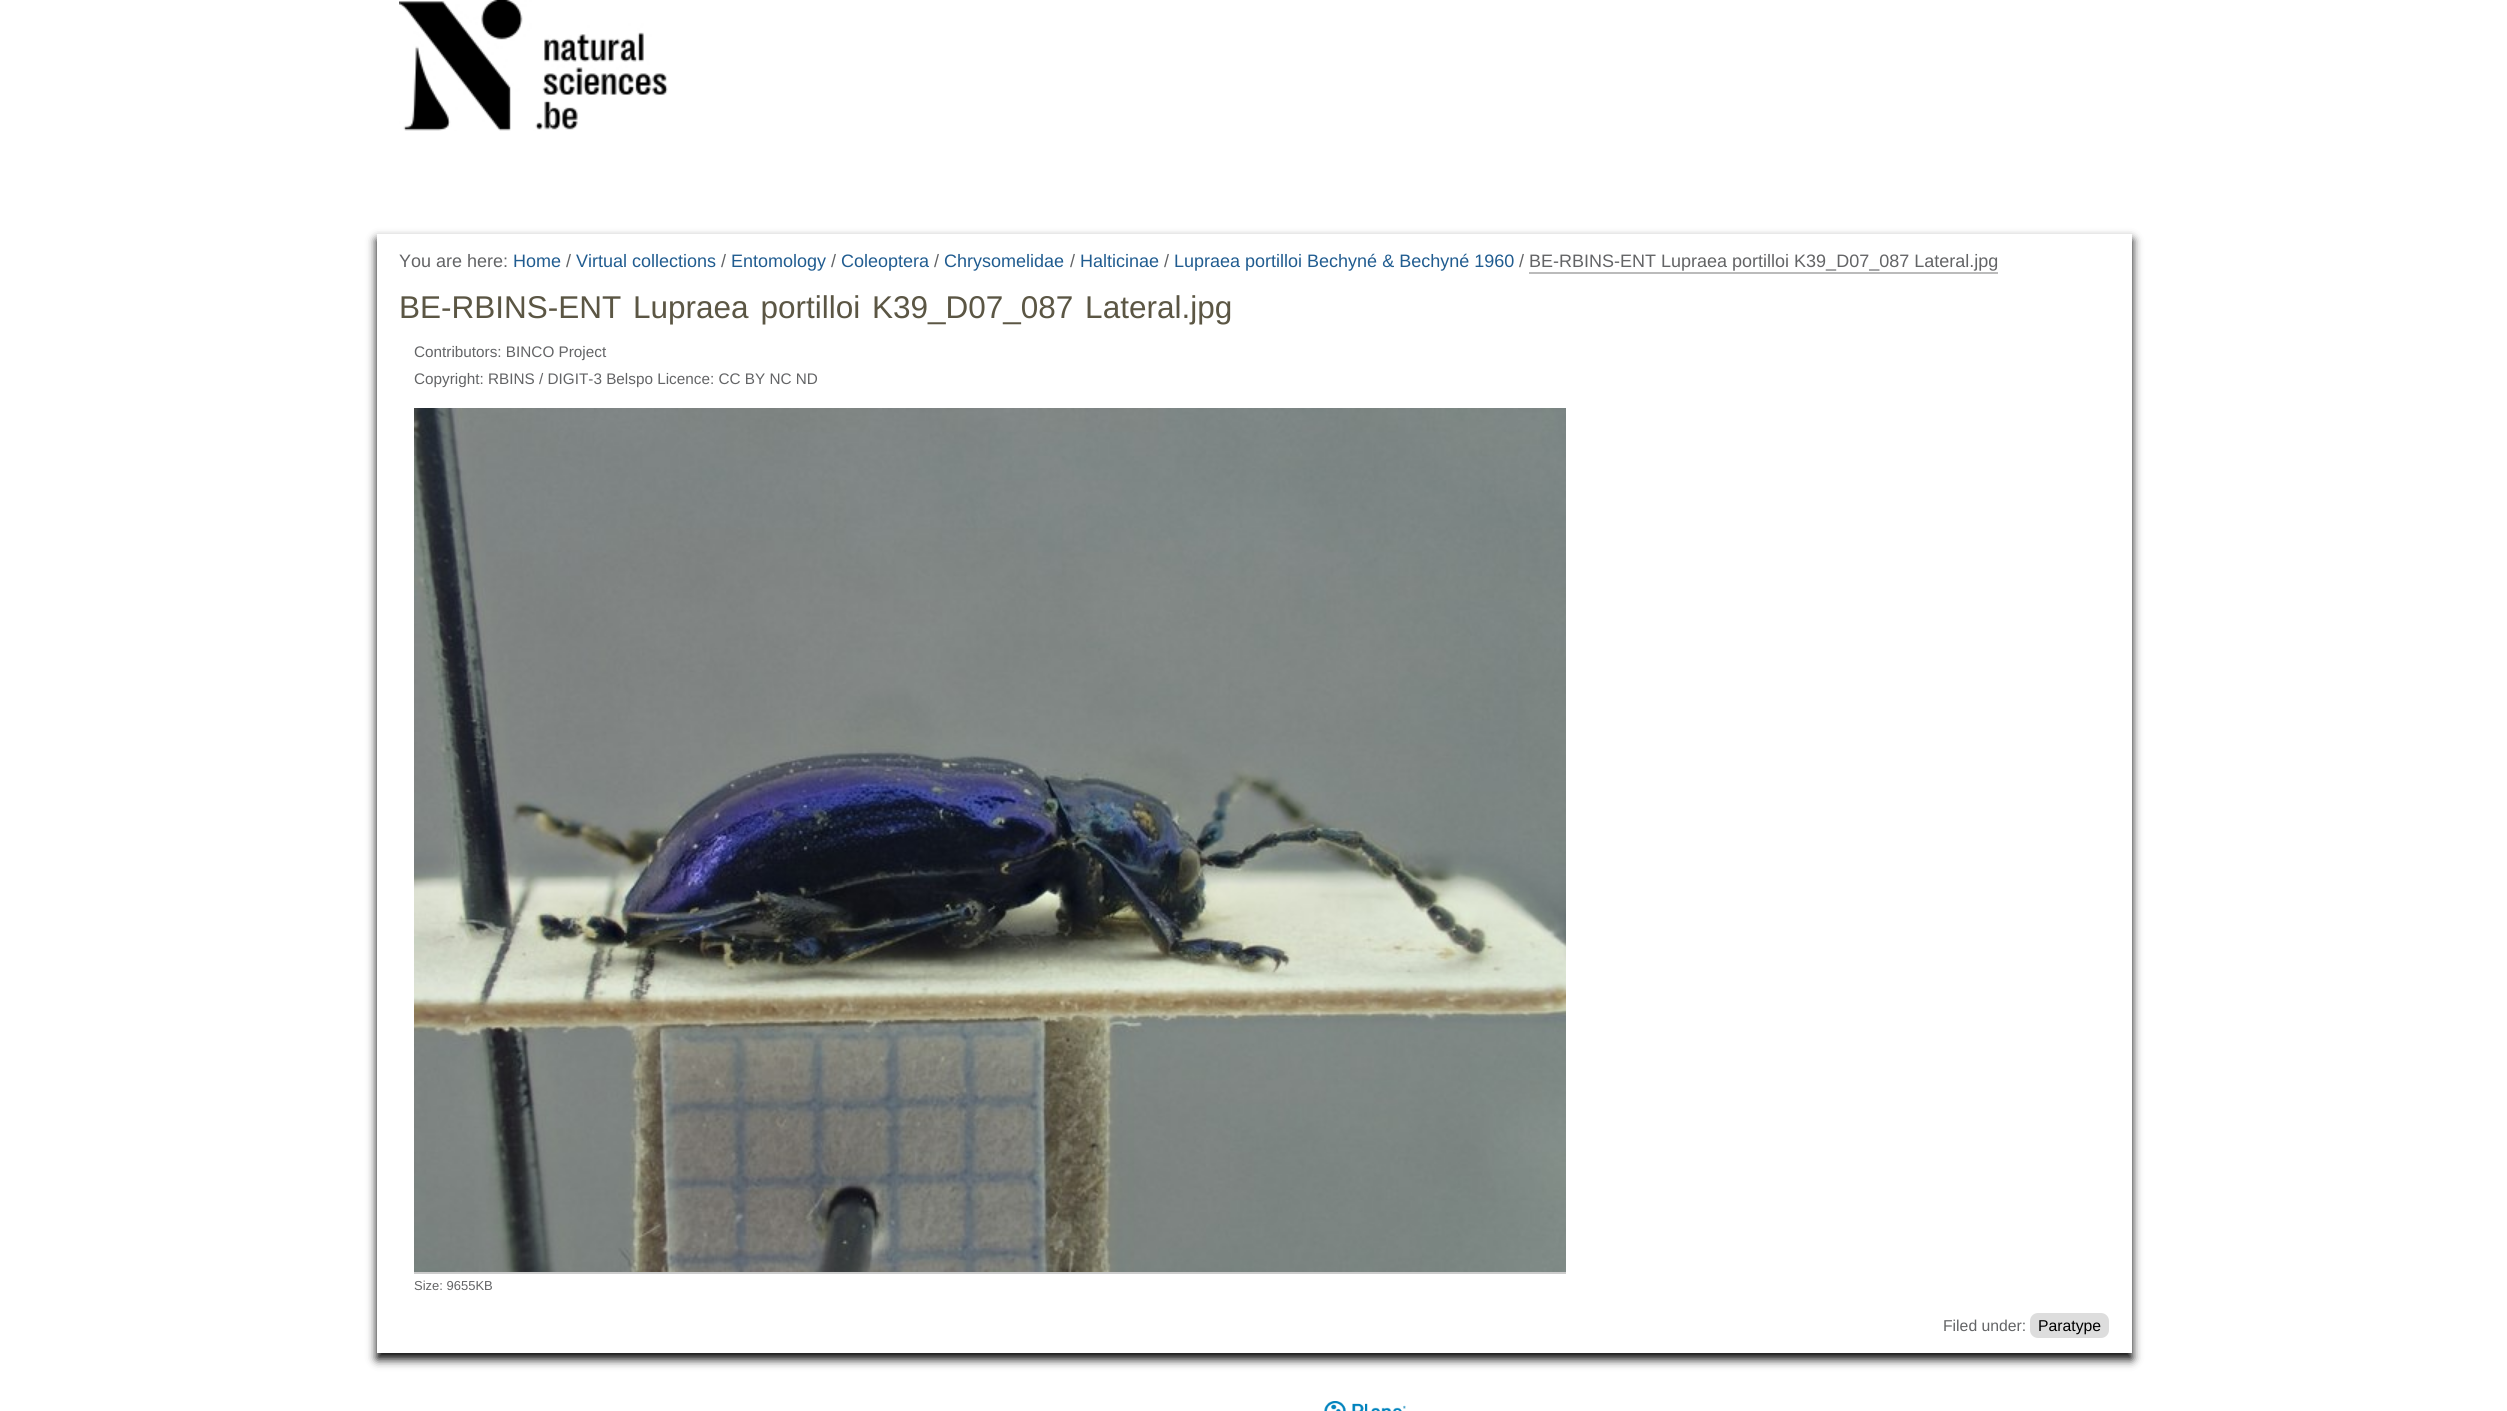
import math
import cairo


def write_spaced(ctx, x, y, s, letter, word):
	ctx.move_to(x, y)
	for ch in s:
		ctx.show_text(ch)
		ctx.rel_move_to(letter + word * (ch == ' '), 0)

def round_path(ctx, x, y, w, h, r):
	ctx.new_sub_path()
	for i, (u, v) in enumerate([(x + w - r, y + h - r), (x + r, y + h - r), (x + r, y + r), (x + w - r, y + r)]):
		ctx.arc(u, v, r, i * math.pi / 2, (i + 1) * math.pi / 2)
	ctx.close_path()

def blur_box(ctx, x, y, w, h, r, blur, alpha):
	ctx.push_group_with_content(cairo.CONTENT_ALPHA)
	ctx.set_operator(cairo.OPERATOR_SOURCE)
	for i in range(15, -16, -2):
		e = blur * i / 6
		if min(w, h) + 2 * e > 0:
			ctx.set_source_rgba(0, 0, 0, alpha * math.erfc((i - 1) / 8.5) / 2)
			round_path(ctx, x - e, y - e, w + 2 * e, h + 2 * e, max(0, min(r + e + blur * .6, min(w, h) / 2 + e)))
			ctx.fill()
	ctx.mask(ctx.pop_group())

def paste(ctx, path, x, y, w, h):
	ctx.save()
	ctx.set_source_surface(cairo.ImageSurface.create_from_png(path), x, y)
	ctx.rectangle(x, y, w, h)
	ctx.fill()
	ctx.restore()

def draw(ctx):
	ctx.set_source_rgb(1, 1, 1)
	ctx.paint()
	paste(ctx, 'media/1.png', 399, 0, 269, 131)
	ctx.set_source_rgb(0, 0, 0)
	blur_box(ctx, 377, 240, 1755, 1119, 0, 5, 1)
	ctx.set_source_rgb(1, 1, 1)
	ctx.rectangle(377, 234, 1755, 1119)
	ctx.fill()
	ctx.select_font_face('Liberation Sans')
	ctx.set_font_size(18)
	ctx.set_source_rgb(0.388, 0.392, 0.4)
	ctx.move_to(399, 267)
	ctx.show_text('You are here:')
	ctx.set_source_rgb(0.125, 0.361, 0.565)
	ctx.move_to(513, 267)
	ctx.show_text('Home')
	ctx.set_source_rgb(0.388, 0.392, 0.4)
	ctx.move_to(566, 267)
	ctx.show_text('/')
	ctx.set_source_rgb(0.125, 0.361, 0.565)
	ctx.move_to(576, 267)
	ctx.show_text('Virtual collections')
	ctx.set_source_rgb(0.388, 0.392, 0.4)
	ctx.move_to(721, 267)
	ctx.show_text('/')
	ctx.set_source_rgb(0.125, 0.361, 0.565)
	ctx.move_to(731, 267)
	ctx.show_text('Entomology')
	ctx.set_source_rgb(0.388, 0.392, 0.4)
	ctx.move_to(831, 267)
	ctx.show_text('/')
	ctx.set_source_rgb(0.125, 0.361, 0.565)
	ctx.move_to(841, 267)
	ctx.show_text('Coleoptera')
	ctx.set_source_rgb(0.388, 0.392, 0.4)
	ctx.move_to(934, 267)
	ctx.show_text('/')
	ctx.set_source_rgb(0.125, 0.361, 0.565)
	ctx.move_to(944, 267)
	ctx.show_text('Chrysomelidae')
	ctx.set_source_rgb(0.388, 0.392, 0.4)
	ctx.move_to(1070, 267)
	ctx.show_text('/')
	ctx.set_source_rgb(0.125, 0.361, 0.565)
	ctx.move_to(1080, 267)
	ctx.show_text('Halticinae')
	ctx.set_source_rgb(0.388, 0.392, 0.4)
	ctx.move_to(1164, 267)
	ctx.show_text('/')
	ctx.set_source_rgb(0.125, 0.361, 0.565)
	ctx.move_to(1174, 267)
	ctx.show_text('Lupraea portilloi Bechyné & Bechyné 1960')
	ctx.set_source_rgb(0.388, 0.392, 0.4)
	ctx.move_to(1519, 267)
	ctx.show_text('/')
	ctx.move_to(1529, 267)
	ctx.show_text('BE-RBINS-ENT Lupraea portilloi K39_D07_087 Lateral.jpg')
	ctx.set_source_rgb(0.733, 0.733, 0.733)
	ctx.rectangle(1529, 272, 469, 2)
	ctx.fill()
	ctx.set_font_size(31.5)
	ctx.set_source_rgb(0.357, 0.337, 0.267)
	write_spaced(ctx, 399, 318, 'BE-RBINS-ENT Lupraea portilloi K39_D07_087 Lateral.jpg', 0, 3)
	ctx.set_font_size(15.3)
	ctx.set_source_rgb(0.388, 0.392, 0.4)
	ctx.move_to(414, 357)
	ctx.show_text('Contributors: BINCO Project')
	ctx.move_to(414, 384)
	ctx.show_text('Copyright: RBINS / DIGIT-3 Belspo Licence: CC BY NC ND')
	ctx.set_source_rgb(0.8, 0.8, 0.8)
	ctx.rectangle(414, 1272, 1152, 2)
	ctx.fill()
	paste(ctx, 'media/2.png', 414, 408, 1152, 864)
	ctx.set_font_size(13)
	ctx.set_source_rgb(0.388, 0.392, 0.4)
	ctx.move_to(414, 1290)
	ctx.show_text('Size: 9655KB')
	ctx.set_font_size(15.75)
	ctx.move_to(1943, 1331)
	ctx.show_text('Filed under:')
	ctx.set_source_rgb(0.867, 0.867, 0.867)
	round_path(ctx, 2030, 1313, 79, 25, 8)
	ctx.fill()
	ctx.set_source_rgb(0, 0, 0)
	ctx.move_to(2038, 1331)
	ctx.show_text('Paratype')
	paste(ctx, 'media/3.png', 1324, 1401, 82, 10)


surface = cairo.ImageSurface(cairo.FORMAT_RGB24, 2507, 1411)
ctx = cairo.Context(surface)
options = cairo.FontOptions()
options.set_hint_metrics(cairo.HINT_METRICS_OFF)
options.set_hint_style(cairo.HINT_STYLE_NONE)
ctx.set_font_options(options)
ctx.set_miter_limit(4)
draw(ctx)
surface.write_to_png('image.png')
